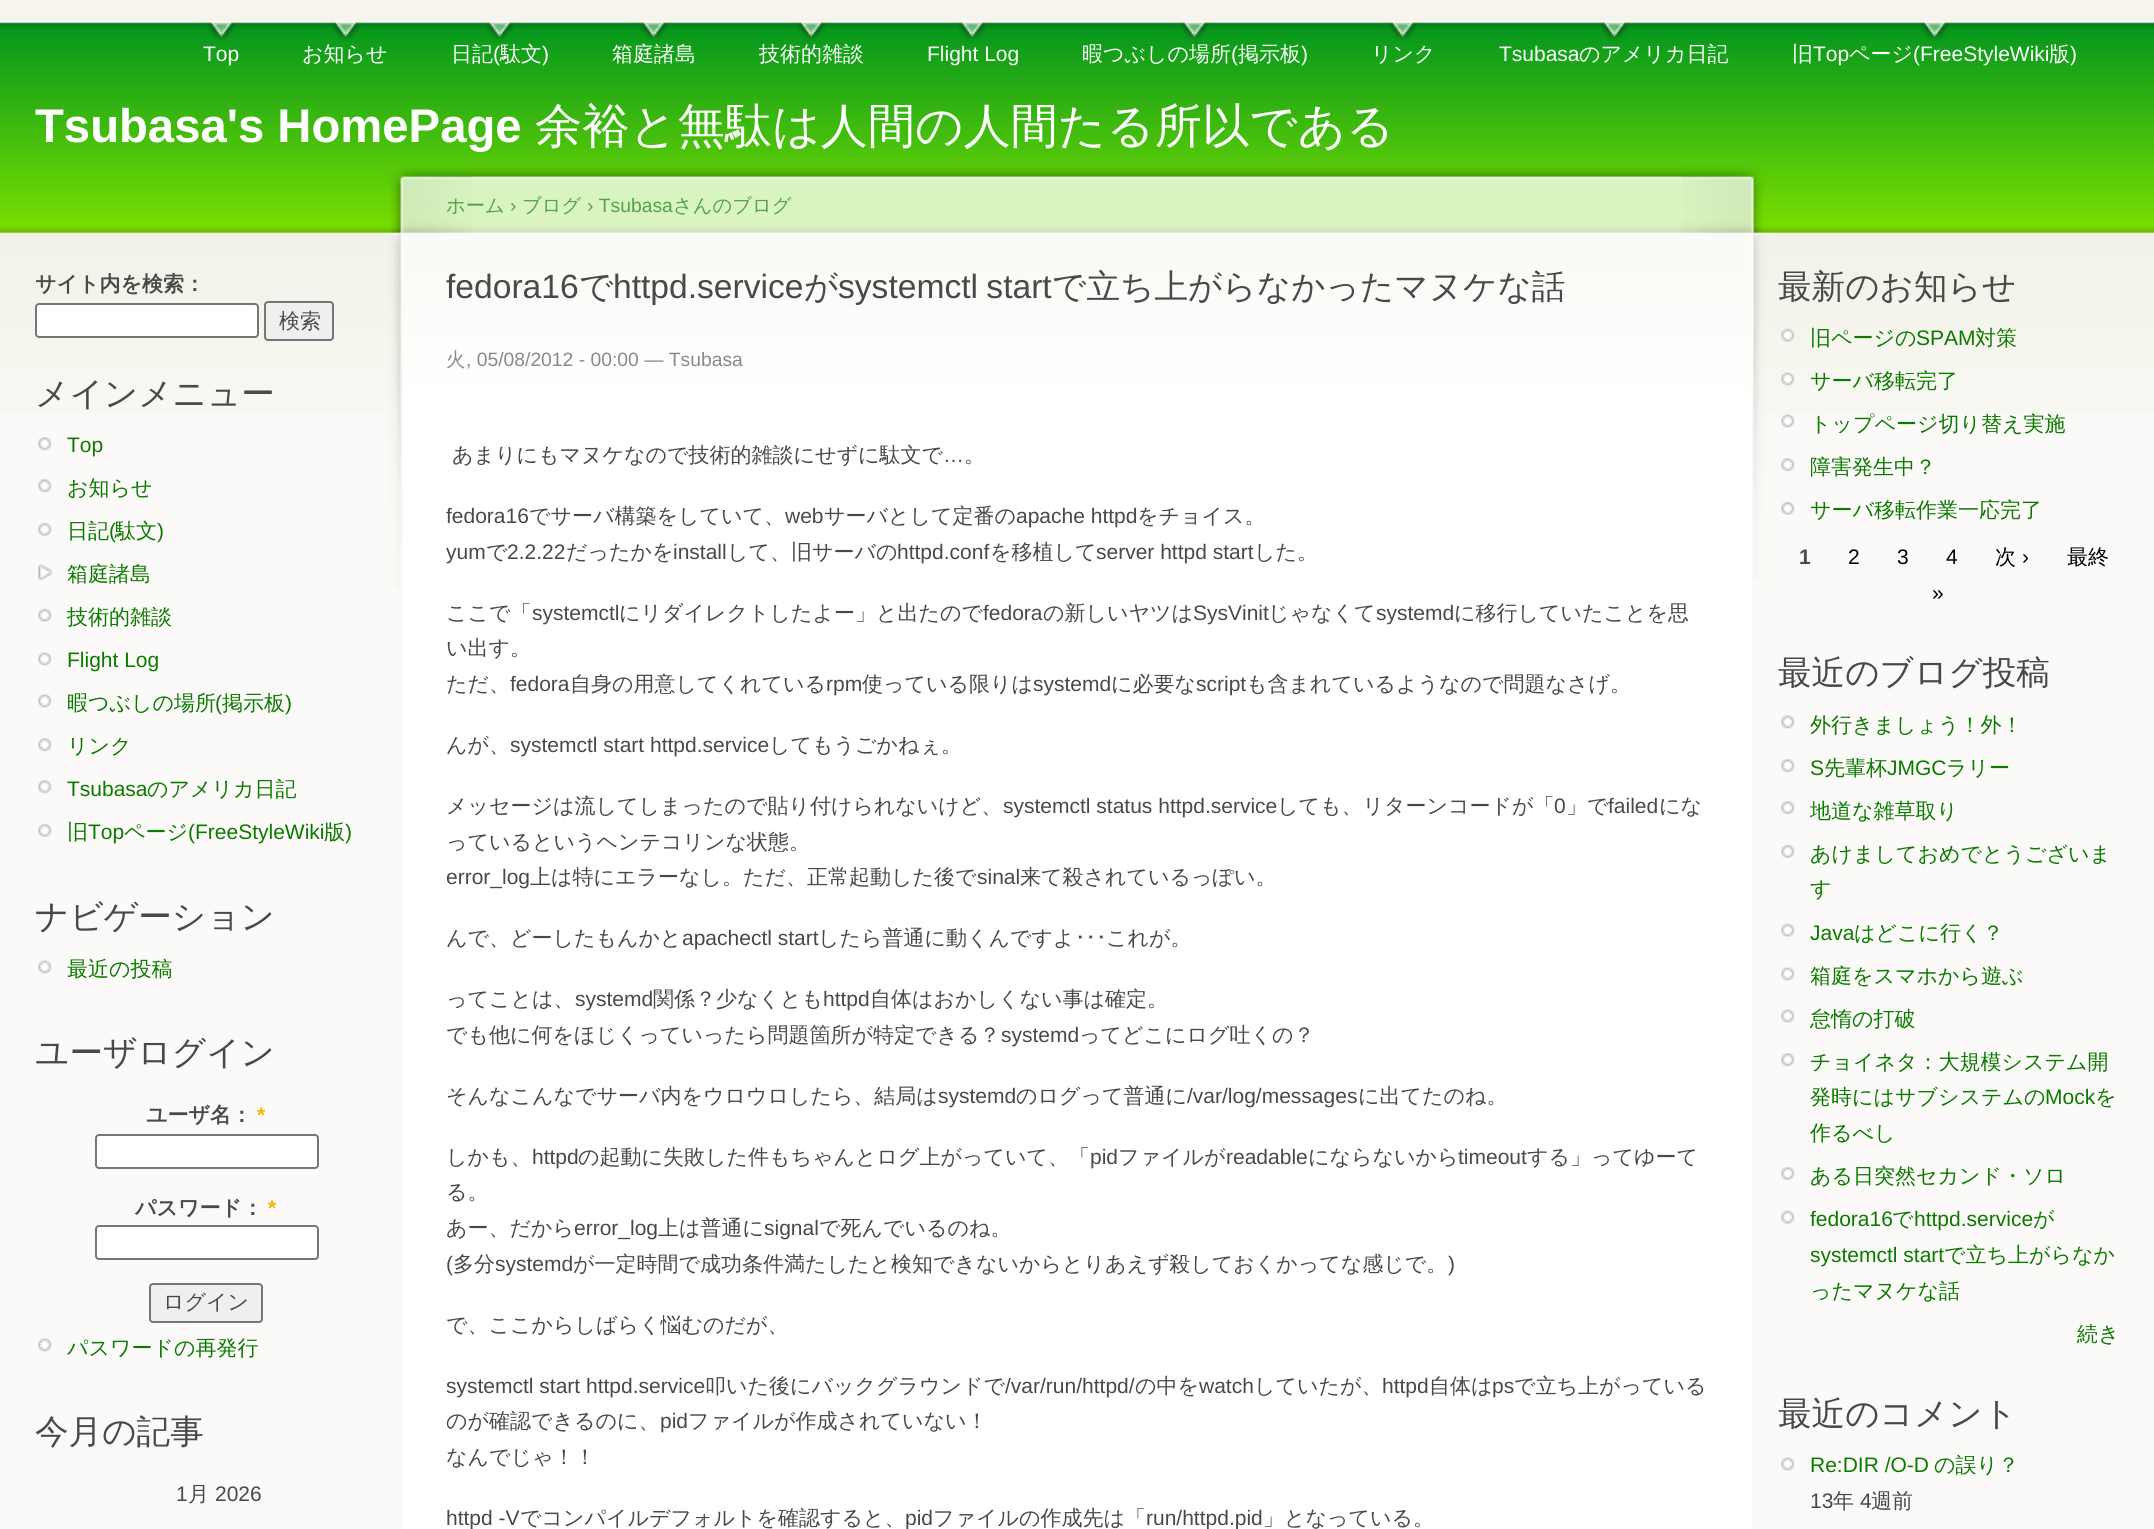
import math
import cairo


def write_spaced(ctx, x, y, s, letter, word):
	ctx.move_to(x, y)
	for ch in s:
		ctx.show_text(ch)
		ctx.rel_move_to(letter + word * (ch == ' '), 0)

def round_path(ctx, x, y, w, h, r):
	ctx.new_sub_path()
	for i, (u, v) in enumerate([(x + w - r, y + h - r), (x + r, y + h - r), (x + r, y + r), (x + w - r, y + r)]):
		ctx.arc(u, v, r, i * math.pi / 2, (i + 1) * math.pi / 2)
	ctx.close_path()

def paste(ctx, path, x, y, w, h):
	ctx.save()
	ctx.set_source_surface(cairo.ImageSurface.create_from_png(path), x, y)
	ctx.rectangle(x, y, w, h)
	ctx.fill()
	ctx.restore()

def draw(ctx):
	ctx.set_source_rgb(0.984, 0.98, 0.969)
	ctx.paint()
	ctx.set_source_rgb(0.961, 0.957, 0.925)
	ctx.rectangle(0, 0, 2154, 21)
	ctx.fill()
	paste(ctx, 'media/1.png', 0, 21, 2154, 393)
	paste(ctx, 'media/2.png', 207, 22, 29, 19)
	ctx.select_font_face('Liberation Sans')
	ctx.set_font_size(21)
	ctx.set_source_rgb(1, 1, 1)
	ctx.move_to(203, 61)
	ctx.show_text('Top')
	paste(ctx, 'media/3.png', 331, 22, 29, 19)
	ctx.select_font_face('WenQuanYi Zen Hei Medium')
	ctx.move_to(302, 61)
	ctx.show_text('お知らせ')
	paste(ctx, 'media/3.png', 485, 22, 29, 19)
	ctx.move_to(451, 61)
	ctx.show_text('日記')
	ctx.select_font_face('Liberation Sans')
	ctx.move_to(493, 61)
	ctx.show_text('(')
	ctx.select_font_face('WenQuanYi Zen Hei Medium')
	ctx.move_to(500, 61)
	ctx.show_text('駄文')
	ctx.select_font_face('Liberation Sans')
	ctx.move_to(542, 61)
	ctx.show_text(')')
	paste(ctx, 'media/3.png', 639, 22, 29, 19)
	ctx.select_font_face('WenQuanYi Zen Hei Medium')
	ctx.move_to(612, 61)
	ctx.show_text('箱庭諸島')
	paste(ctx, 'media/4.png', 796, 22, 30, 19)
	ctx.move_to(759, 61)
	ctx.show_text('技術的雑談')
	paste(ctx, 'media/5.png', 957, 22, 30, 19)
	ctx.select_font_face('Liberation Sans')
	ctx.move_to(927, 61)
	ctx.show_text('Flight Log')
	paste(ctx, 'media/6.png', 1180, 22, 29, 19)
	ctx.select_font_face('WenQuanYi Zen Hei Medium')
	ctx.move_to(1082, 61)
	ctx.show_text('暇つぶしの場所')
	ctx.select_font_face('Liberation Sans')
	ctx.move_to(1231, 61)
	ctx.show_text('(')
	ctx.select_font_face('WenQuanYi Zen Hei Medium')
	ctx.move_to(1238, 61)
	ctx.show_text('掲示板')
	ctx.select_font_face('Liberation Sans')
	ctx.move_to(1301, 61)
	ctx.show_text(')')
	paste(ctx, 'media/7.png', 1388, 22, 29, 19)
	ctx.select_font_face('WenQuanYi Zen Hei Medium')
	ctx.move_to(1371, 61)
	ctx.show_text('リンク')
	paste(ctx, 'media/2.png', 1600, 22, 29, 19)
	ctx.select_font_face('Liberation Sans')
	ctx.move_to(1499, 61)
	ctx.show_text('Tsubasa')
	ctx.select_font_face('WenQuanYi Zen Hei Medium')
	ctx.move_to(1579, 61)
	ctx.show_text('のアメリカ日記')
	paste(ctx, 'media/3.png', 1920, 22, 29, 19)
	ctx.move_to(1792, 61)
	ctx.show_text('旧')
	ctx.select_font_face('Liberation Sans')
	ctx.move_to(1813, 61)
	ctx.show_text('Top')
	ctx.select_font_face('WenQuanYi Zen Hei Medium')
	ctx.move_to(1849, 61)
	ctx.show_text('ページ')
	ctx.select_font_face('Liberation Sans')
	ctx.move_to(1913, 61)
	ctx.show_text('(FreeStyleWiki')
	ctx.select_font_face('WenQuanYi Zen Hei Medium')
	ctx.move_to(2049, 61)
	ctx.show_text('版')
	ctx.select_font_face('Liberation Sans')
	ctx.move_to(2070, 61)
	ctx.show_text(')')
	ctx.select_font_face('Liberation Sans', cairo.FONT_SLANT_NORMAL, cairo.FONT_WEIGHT_BOLD)
	ctx.set_font_size(47.25)
	ctx.move_to(35, 142)
	ctx.show_text('Tsubasa\'s HomePage')
	ctx.select_font_face('WenQuanYi Zen Hei Medium')
	ctx.move_to(535, 142)
	ctx.show_text('余裕と無駄は人間の人間たる所以である')
	ctx.select_font_face('WenQuanYi Zen Hei', cairo.FONT_SLANT_NORMAL, cairo.FONT_WEIGHT_BOLD)
	ctx.set_font_size(21)
	ctx.set_source_rgb(0.286, 0.286, 0.286)
	ctx.move_to(35, 291)
	ctx.show_text('サイト内を検索：')
	ctx.set_source_rgb(1, 1, 1)
	round_path(ctx, 36, 304, 222, 33, 3)
	ctx.fill_preserve()
	ctx.set_source_rgb(0.463, 0.463, 0.463)
	ctx.stroke()
	ctx.set_source_rgb(0.937, 0.937, 0.937)
	round_path(ctx, 265, 302, 68, 38, 3)
	ctx.fill_preserve()
	ctx.set_source_rgb(0.463, 0.463, 0.463)
	ctx.stroke()
	ctx.select_font_face('WenQuanYi Zen Hei Medium')
	ctx.set_source_rgb(0.286, 0.286, 0.286)
	ctx.move_to(279, 328)
	ctx.show_text('検索')
	ctx.set_font_size(33.6)
	ctx.move_to(35, 405)
	ctx.show_text('メインメニュー')
	paste(ctx, 'media/8.png', 38, 437, 14, 14)
	ctx.select_font_face('Liberation Sans')
	ctx.set_font_size(21)
	ctx.set_source_rgb(0.047, 0.478, 0)
	ctx.move_to(67, 452)
	ctx.show_text('Top')
	paste(ctx, 'media/8.png', 38, 479, 14, 14)
	ctx.select_font_face('WenQuanYi Zen Hei Medium')
	ctx.move_to(67, 495)
	ctx.show_text('お知らせ')
	paste(ctx, 'media/9.png', 38, 523, 14, 13)
	ctx.move_to(67, 538)
	ctx.show_text('日記')
	ctx.select_font_face('Liberation Sans')
	ctx.move_to(109, 538)
	ctx.show_text('(')
	ctx.select_font_face('WenQuanYi Zen Hei Medium')
	ctx.move_to(115, 538)
	ctx.show_text('駄文')
	ctx.select_font_face('Liberation Sans')
	ctx.move_to(157, 538)
	ctx.show_text(')')
	paste(ctx, 'media/10.png', 38, 563, 15, 18)
	ctx.select_font_face('WenQuanYi Zen Hei Medium')
	ctx.move_to(67, 581)
	ctx.show_text('箱庭諸島')
	paste(ctx, 'media/11.png', 38, 608, 14, 14)
	ctx.move_to(67, 624)
	ctx.show_text('技術的雑談')
	paste(ctx, 'media/12.png', 38, 652, 14, 14)
	ctx.select_font_face('Liberation Sans')
	ctx.move_to(67, 667)
	ctx.show_text('Flight Log')
	paste(ctx, 'media/12.png', 38, 694, 14, 14)
	ctx.select_font_face('WenQuanYi Zen Hei Medium')
	ctx.move_to(67, 710)
	ctx.show_text('暇つぶしの場所')
	ctx.select_font_face('Liberation Sans')
	ctx.move_to(215, 710)
	ctx.show_text('(')
	ctx.select_font_face('WenQuanYi Zen Hei Medium')
	ctx.move_to(222, 710)
	ctx.show_text('掲示板')
	ctx.select_font_face('Liberation Sans')
	ctx.move_to(285, 710)
	ctx.show_text(')')
	paste(ctx, 'media/8.png', 38, 738, 14, 14)
	ctx.select_font_face('WenQuanYi Zen Hei Medium')
	ctx.move_to(67, 753)
	ctx.show_text('リンク')
	paste(ctx, 'media/8.png', 38, 780, 14, 14)
	ctx.select_font_face('Liberation Sans')
	ctx.move_to(67, 796)
	ctx.show_text('Tsubasa')
	ctx.select_font_face('WenQuanYi Zen Hei Medium')
	ctx.move_to(147, 796)
	ctx.show_text('のアメリカ日記')
	paste(ctx, 'media/9.png', 38, 824, 14, 13)
	ctx.move_to(67, 839)
	ctx.show_text('旧')
	ctx.select_font_face('Liberation Sans')
	ctx.move_to(88, 839)
	ctx.show_text('Top')
	ctx.select_font_face('WenQuanYi Zen Hei Medium')
	ctx.move_to(124, 839)
	ctx.show_text('ページ')
	ctx.select_font_face('Liberation Sans')
	ctx.move_to(188, 839)
	ctx.show_text('(FreeStyleWiki')
	ctx.select_font_face('WenQuanYi Zen Hei Medium')
	ctx.move_to(324, 839)
	ctx.show_text('版')
	ctx.select_font_face('Liberation Sans')
	ctx.move_to(345, 839)
	ctx.show_text(')')
	ctx.select_font_face('WenQuanYi Zen Hei Medium')
	ctx.set_font_size(33.6)
	ctx.set_source_rgb(0.286, 0.286, 0.286)
	ctx.move_to(35, 928)
	ctx.show_text('ナビゲーション')
	paste(ctx, 'media/12.png', 38, 960, 14, 14)
	ctx.set_font_size(21)
	ctx.set_source_rgb(0.047, 0.478, 0)
	ctx.move_to(67, 976)
	ctx.show_text('最近の投稿')
	ctx.set_font_size(33.6)
	ctx.set_source_rgb(0.286, 0.286, 0.286)
	ctx.move_to(35, 1064)
	ctx.show_text('ユーザログイン')
	ctx.select_font_face('WenQuanYi Zen Hei', cairo.FONT_SLANT_NORMAL, cairo.FONT_WEIGHT_BOLD)
	ctx.set_font_size(21)
	ctx.move_to(146, 1122)
	ctx.show_text('ユーザ名：')
	ctx.select_font_face('Liberation Sans', cairo.FONT_SLANT_NORMAL, cairo.FONT_WEIGHT_BOLD)
	ctx.set_source_rgb(1, 0.682, 0)
	ctx.move_to(257, 1122)
	ctx.show_text('*')
	ctx.set_source_rgb(1, 1, 1)
	round_path(ctx, 96, 1135, 222, 33, 3)
	ctx.fill_preserve()
	ctx.set_source_rgb(0.463, 0.463, 0.463)
	ctx.stroke()
	ctx.select_font_face('WenQuanYi Zen Hei', cairo.FONT_SLANT_NORMAL, cairo.FONT_WEIGHT_BOLD)
	ctx.set_source_rgb(0.286, 0.286, 0.286)
	ctx.move_to(135, 1215)
	ctx.show_text('パスワード：')
	ctx.select_font_face('Liberation Sans', cairo.FONT_SLANT_NORMAL, cairo.FONT_WEIGHT_BOLD)
	ctx.set_source_rgb(1, 0.682, 0)
	ctx.move_to(268, 1215)
	ctx.show_text('*')
	ctx.set_source_rgb(1, 1, 1)
	round_path(ctx, 96, 1226, 222, 33, 3)
	ctx.fill_preserve()
	ctx.set_source_rgb(0.463, 0.463, 0.463)
	ctx.stroke()
	ctx.set_source_rgb(0.937, 0.937, 0.937)
	round_path(ctx, 150, 1284, 112, 38, 3)
	ctx.fill_preserve()
	ctx.set_source_rgb(0.463, 0.463, 0.463)
	ctx.stroke()
	ctx.select_font_face('WenQuanYi Zen Hei Medium')
	ctx.set_source_rgb(0.286, 0.286, 0.286)
	ctx.move_to(163, 1309)
	ctx.show_text('ログイン')
	paste(ctx, 'media/12.png', 38, 1338, 14, 14)
	ctx.set_source_rgb(0.047, 0.478, 0)
	ctx.move_to(67, 1355)
	ctx.show_text('パスワードの再発行')
	ctx.set_font_size(33.6)
	ctx.set_source_rgb(0.286, 0.286, 0.286)
	ctx.move_to(35, 1443)
	ctx.show_text('今月の記事')
	ctx.select_font_face('Liberation Sans')
	ctx.set_font_size(21)
	ctx.move_to(176, 1501)
	ctx.show_text('1')
	ctx.select_font_face('WenQuanYi Zen Hei Medium')
	ctx.move_to(188, 1501)
	ctx.show_text('月')
	ctx.select_font_face('Liberation Sans')
	ctx.move_to(215, 1501)
	ctx.show_text('2026')
	ctx.set_source_rgb(1, 1, 1)
	ctx.rectangle(403, 511, 1349, 1018)
	ctx.fill()
	paste(ctx, 'media/13.png', 402, 161, 1280, 350)
	paste(ctx, 'media/14.png', 1682, 161, 87, 419)
	paste(ctx, 'media/15.png', 385, 168, 88, 422)
	ctx.select_font_face('WenQuanYi Zen Hei Medium')
	ctx.set_font_size(19.3)
	ctx.set_source_rgb(0.322, 0.635, 0.31)
	ctx.move_to(446, 212)
	ctx.show_text('ホーム')
	ctx.select_font_face('Liberation Sans')
	ctx.move_to(510, 212)
	ctx.show_text('›')
	ctx.select_font_face('WenQuanYi Zen Hei Medium')
	ctx.move_to(522, 212)
	ctx.show_text('ブログ')
	ctx.select_font_face('Liberation Sans')
	ctx.move_to(587, 212)
	ctx.show_text('› Tsubasa')
	ctx.select_font_face('WenQuanYi Zen Hei Medium')
	ctx.move_to(673, 212)
	ctx.show_text('さんのブログ')
	ctx.select_font_face('Liberation Sans')
	ctx.set_font_size(33.6)
	ctx.set_source_rgb(0.286, 0.286, 0.286)
	ctx.move_to(446, 298)
	ctx.show_text('fedora16')
	ctx.select_font_face('WenQuanYi Zen Hei Medium')
	ctx.move_to(579, 298)
	ctx.show_text('で')
	ctx.select_font_face('Liberation Sans')
	ctx.move_to(613, 298)
	ctx.show_text('httpd.service')
	ctx.select_font_face('WenQuanYi Zen Hei Medium')
	ctx.move_to(804, 298)
	ctx.show_text('が')
	ctx.select_font_face('Liberation Sans')
	write_spaced(ctx, 838, 298, 'systemctl start', 0, -1)
	ctx.select_font_face('WenQuanYi Zen Hei Medium')
	ctx.move_to(1052, 298)
	ctx.show_text('で立ち上がらなかったマヌケな話')
	ctx.set_font_size(19.3)
	ctx.set_source_rgb(0.537, 0.537, 0.537)
	ctx.move_to(446, 366)
	ctx.show_text('火')
	ctx.select_font_face('Liberation Sans')
	ctx.move_to(466, 366)
	ctx.show_text(', 05/08/2012 - 00:00 — Tsubasa')
	ctx.select_font_face('WenQuanYi Zen Hei Medium')
	ctx.set_font_size(21)
	ctx.set_source_rgb(0.286, 0.286, 0.286)
	ctx.move_to(452, 462)
	ctx.show_text('あまりにもマヌケなので技術的雑談にせずに駄文で')
	ctx.select_font_face('Liberation Sans')
	ctx.move_to(943, 462)
	ctx.show_text('…')
	ctx.select_font_face('WenQuanYi Zen Hei Medium')
	ctx.move_to(964, 462)
	ctx.show_text('。')
	ctx.select_font_face('Liberation Sans')
	ctx.move_to(446, 523)
	ctx.show_text('fedora16')
	ctx.select_font_face('WenQuanYi Zen Hei Medium')
	ctx.move_to(529, 523)
	ctx.show_text('でサーバ構築をしていて、')
	ctx.select_font_face('Liberation Sans')
	ctx.move_to(785, 523)
	ctx.show_text('web')
	ctx.select_font_face('WenQuanYi Zen Hei Medium')
	ctx.move_to(824, 523)
	ctx.show_text('サーバとして定番の')
	ctx.select_font_face('Liberation Sans')
	ctx.move_to(1016, 523)
	ctx.show_text('apache httpd')
	ctx.select_font_face('WenQuanYi Zen Hei Medium')
	ctx.move_to(1137, 523)
	ctx.show_text('をチョイス。')
	ctx.select_font_face('Liberation Sans')
	ctx.move_to(446, 559)
	ctx.show_text('yum')
	ctx.select_font_face('WenQuanYi Zen Hei Medium')
	ctx.move_to(486, 559)
	ctx.show_text('で')
	ctx.select_font_face('Liberation Sans')
	ctx.move_to(507, 559)
	ctx.show_text('2.2.22')
	ctx.select_font_face('WenQuanYi Zen Hei Medium')
	ctx.move_to(566, 559)
	ctx.show_text('だったかを')
	ctx.select_font_face('Liberation Sans')
	ctx.move_to(673, 559)
	ctx.show_text('install')
	ctx.select_font_face('WenQuanYi Zen Hei Medium')
	ctx.move_to(727, 559)
	ctx.show_text('して、旧サーバの')
	ctx.select_font_face('Liberation Sans')
	ctx.move_to(897, 559)
	ctx.show_text('httpd.conf')
	ctx.select_font_face('WenQuanYi Zen Hei Medium')
	ctx.move_to(990, 559)
	ctx.show_text('を移植して')
	ctx.select_font_face('Liberation Sans')
	ctx.move_to(1096, 559)
	ctx.show_text('server httpd start')
	ctx.select_font_face('WenQuanYi Zen Hei Medium')
	ctx.move_to(1254, 559)
	ctx.show_text('した。')
	ctx.move_to(446, 620)
	ctx.show_text('ここで「')
	ctx.select_font_face('Liberation Sans')
	ctx.move_to(532, 620)
	ctx.show_text('systemctl')
	ctx.select_font_face('WenQuanYi Zen Hei Medium')
	ctx.move_to(619, 620)
	ctx.show_text('にリダイレクトしたよー」と出たので')
	ctx.select_font_face('Liberation Sans')
	ctx.move_to(983, 620)
	ctx.show_text('fedora')
	ctx.select_font_face('WenQuanYi Zen Hei Medium')
	ctx.move_to(1043, 620)
	ctx.show_text('の新しいヤツは')
	ctx.select_font_face('Liberation Sans')
	ctx.move_to(1193, 620)
	ctx.show_text('SysVinit')
	ctx.select_font_face('WenQuanYi Zen Hei Medium')
	ctx.move_to(1268, 620)
	ctx.show_text('じゃなくて')
	ctx.select_font_face('Liberation Sans')
	ctx.move_to(1376, 620)
	ctx.show_text('systemd')
	ctx.select_font_face('WenQuanYi Zen Hei Medium')
	for x, y, s in [
		(1454, 620, 'に移行していたことを思'),
		(446, 655, 'い出す。'),
		(446, 691, 'ただ、'),
	]:
		ctx.move_to(x, y)
		ctx.show_text(s)
	ctx.select_font_face('Liberation Sans')
	ctx.move_to(510, 691)
	ctx.show_text('fedora')
	ctx.select_font_face('WenQuanYi Zen Hei Medium')
	ctx.move_to(570, 691)
	ctx.show_text('自身の用意してくれている')
	ctx.select_font_face('Liberation Sans')
	ctx.move_to(826, 691)
	ctx.show_text('rpm')
	ctx.select_font_face('WenQuanYi Zen Hei Medium')
	ctx.move_to(862, 691)
	ctx.show_text('使っている限りは')
	ctx.select_font_face('Liberation Sans')
	ctx.move_to(1033, 691)
	ctx.show_text('systemd')
	ctx.select_font_face('WenQuanYi Zen Hei Medium')
	ctx.move_to(1111, 691)
	ctx.show_text('に必要な')
	ctx.select_font_face('Liberation Sans')
	ctx.move_to(1196, 691)
	ctx.show_text('script')
	ctx.select_font_face('WenQuanYi Zen Hei Medium')
	ctx.move_to(1246, 691)
	ctx.show_text('も含まれているようなので問題なさげ。')
	ctx.move_to(446, 752)
	ctx.show_text('んが、')
	ctx.select_font_face('Liberation Sans')
	ctx.move_to(510, 752)
	ctx.show_text('systemctl start httpd.service')
	ctx.select_font_face('WenQuanYi Zen Hei Medium')
	ctx.move_to(769, 752)
	ctx.show_text('してもうごかねぇ。')
	ctx.move_to(446, 813)
	ctx.show_text('メッセージは流してしまったので貼り付けられないけど、')
	ctx.select_font_face('Liberation Sans')
	ctx.move_to(1003, 813)
	ctx.show_text('systemctl status httpd.service')
	ctx.select_font_face('WenQuanYi Zen Hei Medium')
	ctx.move_to(1277, 813)
	ctx.show_text('しても、リターンコードが「')
	ctx.select_font_face('Liberation Sans')
	ctx.move_to(1554, 813)
	ctx.show_text('0')
	ctx.select_font_face('WenQuanYi Zen Hei Medium')
	ctx.move_to(1566, 813)
	ctx.show_text('」で')
	ctx.select_font_face('Liberation Sans')
	ctx.move_to(1608, 813)
	ctx.show_text('failed')
	ctx.select_font_face('WenQuanYi Zen Hei Medium')
	ctx.move_to(1659, 813)
	ctx.show_text('にな')
	ctx.move_to(446, 849)
	ctx.show_text('っているというヘンテコリンな状態。')
	ctx.select_font_face('Liberation Sans')
	ctx.move_to(446, 884)
	ctx.show_text('error_log')
	ctx.select_font_face('WenQuanYi Zen Hei Medium')
	ctx.move_to(530, 884)
	ctx.show_text('上は特にエラーなし。ただ、正常起動した後で')
	ctx.select_font_face('Liberation Sans')
	ctx.move_to(977, 884)
	ctx.show_text('sinal')
	ctx.select_font_face('WenQuanYi Zen Hei Medium')
	ctx.move_to(1020, 884)
	ctx.show_text('来て殺されているっぽい。')
	ctx.move_to(446, 945)
	ctx.show_text('んで、どーしたもんかと')
	ctx.select_font_face('Liberation Sans')
	ctx.move_to(682, 945)
	ctx.show_text('apachectl start')
	ctx.select_font_face('WenQuanYi Zen Hei Medium')
	ctx.move_to(818, 945)
	ctx.show_text('したら普通に動くんですよ')
	ctx.select_font_face('IPAPGothic')
	ctx.move_to(1075, 945)
	ctx.show_text('･･･')
	ctx.select_font_face('WenQuanYi Zen Hei Medium')
	ctx.move_to(1106, 945)
	ctx.show_text('これが。')
	ctx.move_to(446, 1006)
	ctx.show_text('ってことは、')
	ctx.select_font_face('Liberation Sans')
	ctx.move_to(575, 1006)
	ctx.show_text('systemd')
	ctx.select_font_face('WenQuanYi Zen Hei Medium')
	ctx.move_to(653, 1006)
	ctx.show_text('関係？少なくとも')
	ctx.select_font_face('Liberation Sans')
	ctx.move_to(823, 1006)
	ctx.show_text('httpd')
	ctx.select_font_face('WenQuanYi Zen Hei Medium')
	ctx.move_to(870, 1006)
	ctx.show_text('自体はおかしくない事は確定。')
	ctx.move_to(446, 1042)
	ctx.show_text('でも他に何をほじくっていったら問題箇所が特定できる？')
	ctx.select_font_face('Liberation Sans')
	ctx.move_to(1001, 1042)
	ctx.show_text('systemd')
	ctx.select_font_face('WenQuanYi Zen Hei Medium')
	ctx.move_to(1079, 1042)
	ctx.show_text('ってどこにログ吐くの？')
	ctx.move_to(446, 1103)
	ctx.show_text('そんなこんなでサーバ内をウロウロしたら、結局は')
	ctx.select_font_face('Liberation Sans')
	ctx.move_to(938, 1103)
	ctx.show_text('systemd')
	ctx.select_font_face('WenQuanYi Zen Hei Medium')
	ctx.move_to(1016, 1103)
	ctx.show_text('のログって普通に')
	ctx.select_font_face('Liberation Sans')
	ctx.move_to(1187, 1103)
	ctx.show_text('/var/log/messages')
	ctx.select_font_face('WenQuanYi Zen Hei Medium')
	ctx.move_to(1358, 1103)
	ctx.show_text('に出てたのね。')
	ctx.move_to(446, 1164)
	ctx.show_text('しかも、')
	ctx.select_font_face('Liberation Sans')
	ctx.move_to(532, 1164)
	ctx.show_text('httpd')
	ctx.select_font_face('WenQuanYi Zen Hei Medium')
	ctx.move_to(578, 1164)
	ctx.show_text('の起動に失敗した件もちゃんとログ上がっていて、「')
	ctx.select_font_face('Liberation Sans')
	ctx.move_to(1090, 1164)
	ctx.show_text('pid')
	ctx.select_font_face('WenQuanYi Zen Hei Medium')
	ctx.move_to(1118, 1164)
	ctx.show_text('ファイルが')
	ctx.select_font_face('Liberation Sans')
	ctx.move_to(1226, 1164)
	ctx.show_text('readable')
	ctx.select_font_face('WenQuanYi Zen Hei Medium')
	ctx.move_to(1308, 1164)
	ctx.show_text('にならないから')
	ctx.select_font_face('Liberation Sans')
	ctx.move_to(1458, 1164)
	ctx.show_text('timeout')
	ctx.select_font_face('WenQuanYi Zen Hei Medium')
	for x, y, s in [
		(1527, 1164, 'する」ってゆーて'),
		(446, 1199, 'る。'),
		(446, 1235, 'あー、だから'),
	]:
		ctx.move_to(x, y)
		ctx.show_text(s)
	ctx.select_font_face('Liberation Sans')
	ctx.move_to(574, 1235)
	ctx.show_text('error_log')
	ctx.select_font_face('WenQuanYi Zen Hei Medium')
	ctx.move_to(658, 1235)
	ctx.show_text('上は普通に')
	ctx.select_font_face('Liberation Sans')
	ctx.move_to(764, 1235)
	ctx.show_text('signal')
	ctx.select_font_face('WenQuanYi Zen Hei Medium')
	ctx.move_to(819, 1235)
	ctx.show_text('で死んでいるのね。')
	ctx.select_font_face('Liberation Sans')
	ctx.move_to(446, 1271)
	ctx.show_text('(')
	ctx.select_font_face('WenQuanYi Zen Hei Medium')
	ctx.move_to(453, 1271)
	ctx.show_text('多分')
	ctx.select_font_face('Liberation Sans')
	ctx.move_to(495, 1271)
	ctx.show_text('systemd')
	ctx.select_font_face('WenQuanYi Zen Hei Medium')
	ctx.move_to(573, 1271)
	ctx.show_text('が一定時間で成功条件満たしたと検知できないからとりあえず殺しておくかってな感じで。')
	ctx.select_font_face('Liberation Sans')
	ctx.move_to(1448, 1271)
	ctx.show_text(')')
	ctx.select_font_face('WenQuanYi Zen Hei Medium')
	ctx.move_to(446, 1332)
	ctx.show_text('で、ここからしばらく悩むのだが、')
	ctx.select_font_face('Liberation Sans')
	ctx.move_to(446, 1393)
	ctx.show_text('systemctl start httpd.service')
	ctx.select_font_face('WenQuanYi Zen Hei Medium')
	ctx.move_to(705, 1393)
	ctx.show_text('叩いた後にバックグラウンドで')
	ctx.select_font_face('Liberation Sans')
	ctx.move_to(1005, 1393)
	ctx.show_text('/var/run/httpd/')
	ctx.select_font_face('WenQuanYi Zen Hei Medium')
	ctx.move_to(1135, 1393)
	ctx.show_text('の中を')
	ctx.select_font_face('Liberation Sans')
	ctx.move_to(1199, 1393)
	ctx.show_text('watch')
	ctx.select_font_face('WenQuanYi Zen Hei Medium')
	ctx.move_to(1254, 1393)
	ctx.show_text('していたが、')
	ctx.select_font_face('Liberation Sans')
	ctx.move_to(1382, 1393)
	ctx.show_text('httpd')
	ctx.select_font_face('WenQuanYi Zen Hei Medium')
	ctx.move_to(1429, 1393)
	ctx.show_text('自体は')
	ctx.select_font_face('Liberation Sans')
	ctx.move_to(1492, 1393)
	ctx.show_text('ps')
	ctx.select_font_face('WenQuanYi Zen Hei Medium')
	ctx.move_to(1514, 1393)
	ctx.show_text('で立ち上がっている')
	ctx.move_to(446, 1428)
	ctx.show_text('のが確認できるのに、')
	ctx.select_font_face('Liberation Sans')
	ctx.move_to(660, 1428)
	ctx.show_text('pid')
	ctx.select_font_face('WenQuanYi Zen Hei Medium')
	ctx.move_to(688, 1428)
	ctx.show_text('ファイルが作成されていない！')
	ctx.move_to(446, 1464)
	ctx.show_text('なんでじゃ！！')
	ctx.select_font_face('Liberation Sans')
	ctx.move_to(446, 1525)
	ctx.show_text('httpd -V')
	ctx.select_font_face('WenQuanYi Zen Hei Medium')
	ctx.move_to(520, 1525)
	ctx.show_text('でコンパイルデフォルトを確認すると、')
	ctx.select_font_face('Liberation Sans')
	ctx.move_to(905, 1525)
	ctx.show_text('pid')
	ctx.select_font_face('WenQuanYi Zen Hei Medium')
	ctx.move_to(933, 1525)
	ctx.show_text('ファイルの作成先は「')
	ctx.select_font_face('Liberation Sans')
	ctx.move_to(1146, 1525)
	ctx.show_text('run/httpd.pid')
	ctx.select_font_face('WenQuanYi Zen Hei Medium')
	ctx.move_to(1263, 1525)
	ctx.show_text('」となっている。')
	ctx.set_font_size(33.6)
	ctx.move_to(1778, 298)
	ctx.show_text('最新のお知らせ')
	paste(ctx, 'media/16.png', 1781, 328, 14, 14)
	ctx.set_font_size(21)
	ctx.set_source_rgb(0.047, 0.478, 0)
	ctx.move_to(1810, 345)
	ctx.show_text('旧ページの')
	ctx.select_font_face('Liberation Sans')
	ctx.move_to(1916, 345)
	ctx.show_text('SPAM')
	ctx.select_font_face('WenQuanYi Zen Hei Medium')
	ctx.move_to(1975, 345)
	ctx.show_text('対策')
	paste(ctx, 'media/17.png', 1781, 372, 14, 14)
	ctx.move_to(1810, 388)
	ctx.show_text('サーバ移転完了')
	paste(ctx, 'media/12.png', 1781, 414, 14, 14)
	ctx.move_to(1810, 431)
	ctx.show_text('トップページ切り替え実施')
	paste(ctx, 'media/8.png', 1781, 458, 14, 14)
	ctx.move_to(1810, 474)
	ctx.show_text('障害発生中？')
	paste(ctx, 'media/9.png', 1781, 502, 14, 13)
	ctx.move_to(1810, 517)
	ctx.show_text('サーバ移転作業一応完了')
	ctx.select_font_face('Liberation Sans', cairo.FONT_SLANT_NORMAL, cairo.FONT_WEIGHT_BOLD)
	ctx.set_source_rgb(0.286, 0.286, 0.286)
	ctx.move_to(1799, 564)
	ctx.show_text('1')
	ctx.select_font_face('Liberation Sans')
	ctx.set_source_rgb(0, 0, 0)
	for x, y, s in [
		(1848, 564, '2'),
		(1897, 564, '3'),
		(1946, 564, '4'),
	]:
		ctx.move_to(x, y)
		ctx.show_text(s)
	ctx.select_font_face('WenQuanYi Zen Hei Medium')
	ctx.move_to(1995, 564)
	ctx.show_text('次')
	ctx.select_font_face('Liberation Sans')
	ctx.move_to(2022, 564)
	ctx.show_text('›')
	ctx.select_font_face('WenQuanYi Zen Hei Medium')
	ctx.move_to(2067, 564)
	ctx.show_text('最終')
	ctx.select_font_face('Liberation Sans')
	ctx.move_to(1932, 600)
	ctx.show_text('»')
	ctx.select_font_face('WenQuanYi Zen Hei Medium')
	ctx.set_font_size(33.6)
	ctx.set_source_rgb(0.286, 0.286, 0.286)
	ctx.move_to(1778, 684)
	ctx.show_text('最近のブログ投稿')
	paste(ctx, 'media/12.png', 1781, 715, 14, 14)
	ctx.set_font_size(21)
	ctx.set_source_rgb(0.047, 0.478, 0)
	ctx.move_to(1810, 732)
	ctx.show_text('外行きましょう！外！')
	paste(ctx, 'media/8.png', 1781, 759, 14, 14)
	ctx.select_font_face('Liberation Sans')
	ctx.move_to(1810, 775)
	ctx.show_text('S')
	ctx.select_font_face('WenQuanYi Zen Hei Medium')
	ctx.move_to(1824, 775)
	ctx.show_text('先輩杯')
	ctx.select_font_face('Liberation Sans')
	ctx.move_to(1887, 775)
	ctx.show_text('JMGC')
	ctx.select_font_face('WenQuanYi Zen Hei Medium')
	ctx.move_to(1946, 775)
	ctx.show_text('ラリー')
	paste(ctx, 'media/8.png', 1781, 801, 14, 14)
	ctx.move_to(1810, 818)
	ctx.show_text('地道な雑草取り')
	paste(ctx, 'media/9.png', 1781, 845, 14, 13)
	ctx.move_to(1810, 861)
	ctx.show_text('あけましておめでとうございま')
	ctx.move_to(1810, 896)
	ctx.show_text('す')
	paste(ctx, 'media/11.png', 1781, 923, 14, 14)
	ctx.select_font_face('Liberation Sans')
	ctx.move_to(1810, 940)
	ctx.show_text('Java')
	ctx.select_font_face('WenQuanYi Zen Hei Medium')
	ctx.move_to(1854, 940)
	ctx.show_text('はどこに行く？')
	paste(ctx, 'media/12.png', 1781, 967, 14, 14)
	ctx.move_to(1810, 983)
	ctx.show_text('箱庭をスマホから遊ぶ')
	paste(ctx, 'media/12.png', 1781, 1009, 14, 14)
	ctx.move_to(1810, 1026)
	ctx.show_text('怠惰の打破')
	paste(ctx, 'media/8.png', 1781, 1053, 14, 14)
	ctx.move_to(1810, 1069)
	ctx.show_text('チョイネタ：大規模システム開')
	ctx.move_to(1810, 1104)
	ctx.show_text('発時にはサブシステムの')
	ctx.select_font_face('Liberation Sans')
	ctx.move_to(2045, 1104)
	ctx.show_text('Mock')
	ctx.select_font_face('WenQuanYi Zen Hei Medium')
	ctx.move_to(2095, 1104)
	ctx.show_text('を')
	ctx.move_to(1810, 1140)
	ctx.show_text('作るべし')
	paste(ctx, 'media/9.png', 1781, 1167, 14, 13)
	ctx.move_to(1810, 1183)
	ctx.show_text('ある日突然セカンド・ソロ')
	paste(ctx, 'media/11.png', 1781, 1210, 14, 14)
	ctx.select_font_face('Liberation Sans')
	ctx.move_to(1810, 1226)
	ctx.show_text('fedora16')
	ctx.select_font_face('WenQuanYi Zen Hei Medium')
	ctx.move_to(1892, 1226)
	ctx.show_text('で')
	ctx.select_font_face('Liberation Sans')
	ctx.move_to(1914, 1226)
	ctx.show_text('httpd.service')
	ctx.select_font_face('WenQuanYi Zen Hei Medium')
	ctx.move_to(2033, 1226)
	ctx.show_text('が')
	ctx.select_font_face('Liberation Sans')
	ctx.move_to(1810, 1262)
	ctx.show_text('systemctl start')
	ctx.select_font_face('WenQuanYi Zen Hei Medium')
	for x, y, s in [
		(1944, 1262, 'で立ち上がらなか'),
		(1810, 1298, 'ったマヌケな話'),
		(2077, 1341, '続き'),
	]:
		ctx.move_to(x, y)
		ctx.show_text(s)
	ctx.set_font_size(33.6)
	ctx.set_source_rgb(0.286, 0.286, 0.286)
	ctx.move_to(1778, 1425)
	ctx.show_text('最近のコメント')
	paste(ctx, 'media/12.png', 1781, 1457, 14, 14)
	ctx.select_font_face('Liberation Sans')
	ctx.set_font_size(21)
	ctx.set_source_rgb(0.047, 0.478, 0)
	ctx.move_to(1810, 1472)
	ctx.show_text('Re:DIR /O-D')
	ctx.select_font_face('WenQuanYi Zen Hei Medium')
	ctx.move_to(1934, 1472)
	ctx.show_text('の誤り？')
	ctx.select_font_face('Liberation Sans')
	ctx.set_source_rgb(0.286, 0.286, 0.286)
	ctx.move_to(1810, 1508)
	ctx.show_text('13')
	ctx.select_font_face('WenQuanYi Zen Hei Medium')
	ctx.move_to(1833, 1508)
	ctx.show_text('年')
	ctx.select_font_face('Liberation Sans')
	ctx.move_to(1860, 1508)
	ctx.show_text('4')
	ctx.select_font_face('WenQuanYi Zen Hei Medium')
	ctx.move_to(1871, 1508)
	ctx.show_text('週前')


surface = cairo.ImageSurface(cairo.FORMAT_RGB24, 2154, 1529)
ctx = cairo.Context(surface)
options = cairo.FontOptions()
options.set_hint_metrics(cairo.HINT_METRICS_OFF)
options.set_hint_style(cairo.HINT_STYLE_NONE)
ctx.set_font_options(options)
ctx.set_miter_limit(4)
draw(ctx)
surface.write_to_png('image.png')
